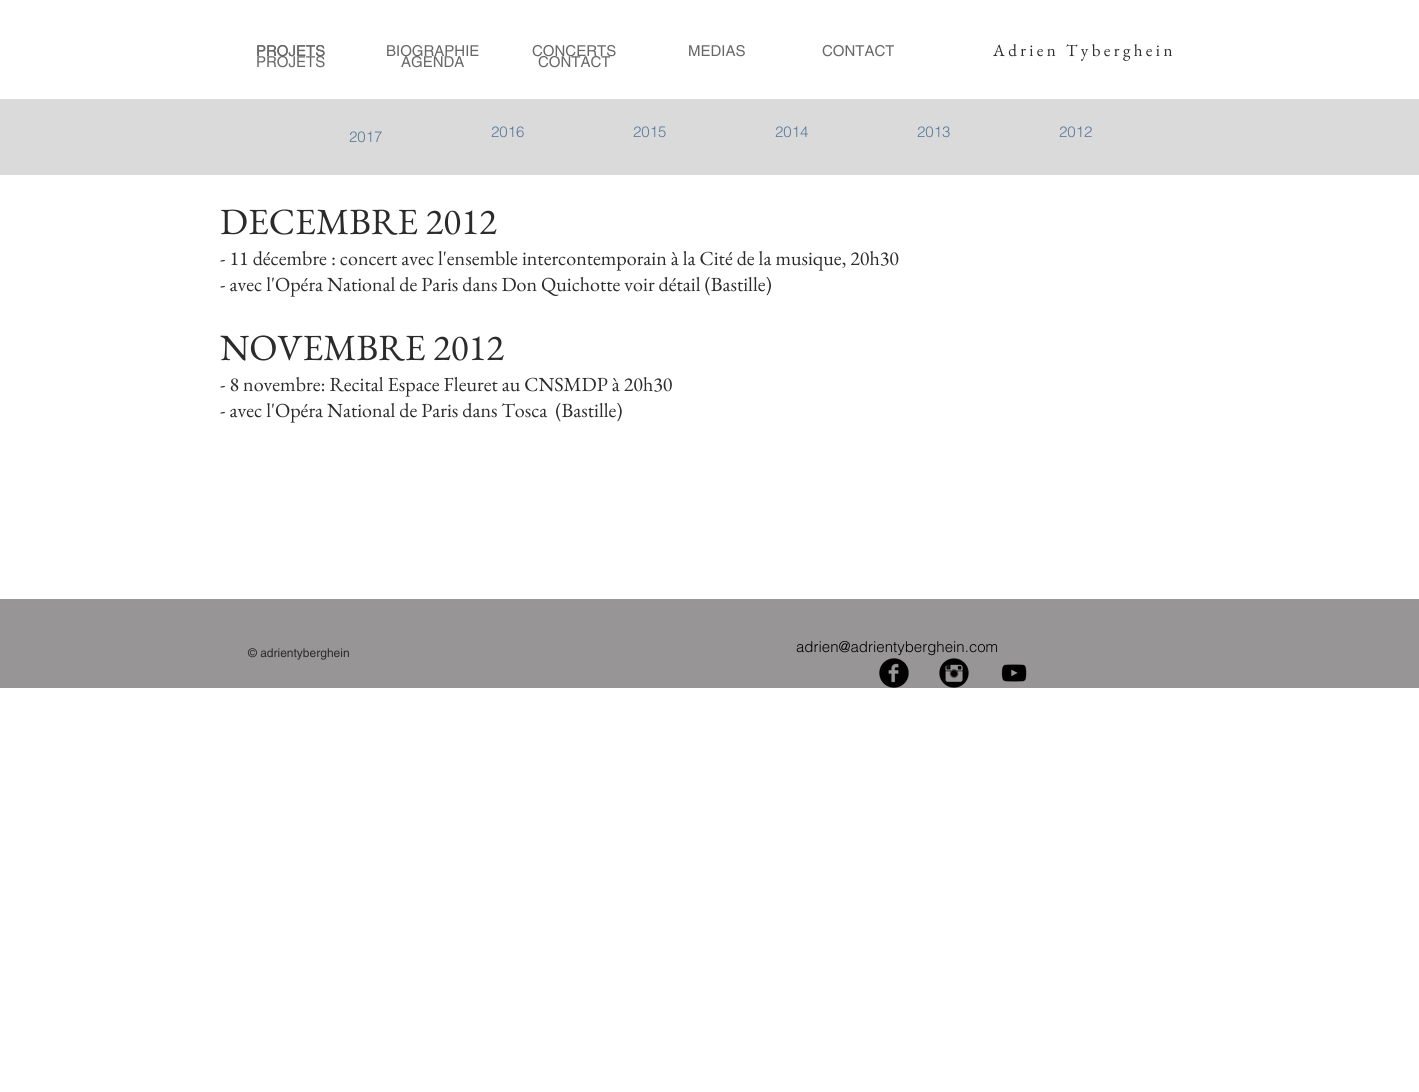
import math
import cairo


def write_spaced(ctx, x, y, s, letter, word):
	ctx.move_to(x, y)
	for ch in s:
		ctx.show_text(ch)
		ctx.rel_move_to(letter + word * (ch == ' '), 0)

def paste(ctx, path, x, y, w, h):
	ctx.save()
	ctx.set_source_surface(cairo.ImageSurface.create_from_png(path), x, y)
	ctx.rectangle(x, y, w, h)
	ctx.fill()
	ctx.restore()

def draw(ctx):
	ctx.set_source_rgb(1, 1, 1)
	ctx.paint()
	ctx.select_font_face('helvetica')
	ctx.set_font_size(15)
	ctx.set_source_rgb(0.408, 0.408, 0.408)
	for x, y, s in [
		(256, 56, 'PROJETS'),
		(256, 56, 'PROJETS'),
		(822, 56, 'CONTACT'),
		(386, 56, 'BIOGRAPHIE'),
		(532, 56, 'CONCERTS'),
		(688, 56, 'MEDIAS'),
	]:
		ctx.move_to(x, y)
		ctx.show_text(s)
	ctx.select_font_face('EB Garamond')
	ctx.set_font_size(17)
	ctx.set_source_rgb(0.169, 0.169, 0.169)
	write_spaced(ctx, 993, 56, 'Adrien Tyberghein', 3.4, 0)
	ctx.select_font_face('helvetica')
	ctx.set_font_size(15)
	ctx.set_source_rgb(0.408, 0.408, 0.408)
	for x, y, s in [
		(256, 67, 'PROJETS'),
		(401, 67, 'AGENDA'),
		(538, 67, 'CONTACT'),
	]:
		ctx.move_to(x, y)
		ctx.show_text(s)
	ctx.set_source_rgb(0.855, 0.855, 0.855)
	ctx.rectangle(0, 99, 1419, 76)
	ctx.fill()
	ctx.select_font_face('helvetica Light')
	ctx.set_source_rgb(0.341, 0.471, 0.604)
	for x, y, s in [
		(349, 142, '2017'),
		(491, 137, '2016'),
		(633, 137, '2015'),
		(775, 137, '2014'),
		(917, 137, '2013'),
		(1059, 137, '2012'),
	]:
		ctx.move_to(x, y)
		ctx.show_text(s)
	ctx.select_font_face('EB Garamond')
	ctx.set_font_size(37)
	ctx.set_source_rgb(0.169, 0.169, 0.169)
	ctx.move_to(220, 234)
	ctx.show_text('DECEMBRE 2012')
	ctx.set_font_size(20)
	ctx.move_to(220, 265)
	ctx.show_text('- 11 décembre : concert avec l\'ensemble intercontemporain à la Cité de la musique, 20h30')
	ctx.move_to(220, 291)
	ctx.show_text('- avec l\'Opéra National de Paris dans Don Quichotte voir détail (Bastille)')
	ctx.set_font_size(37)
	ctx.move_to(220, 360)
	ctx.show_text('NOVEMBRE 2012')
	ctx.set_font_size(20)
	ctx.move_to(220, 391)
	ctx.show_text('- 8 novembre: Recital Espace Fleuret au CNSMDP à 20h30')
	ctx.move_to(220, 417)
	ctx.show_text('- avec l\'Opéra National de Paris dans Tosca  (Bastille)')
	ctx.set_source_rgb(0.592, 0.584, 0.584)
	ctx.rectangle(0, 599, 1419, 89)
	ctx.fill()
	ctx.select_font_face('helvetica')
	ctx.set_font_size(12)
	ctx.set_source_rgb(0.169, 0.169, 0.169)
	ctx.move_to(248, 657)
	ctx.show_text('© adrientyberghein')
	ctx.select_font_face('helvetica Light')
	ctx.set_font_size(15)
	ctx.set_source_rgb(0, 0, 0)
	ctx.move_to(796, 652)
	ctx.show_text('adrien@adrientyberghein.com')
	paste(ctx, 'media/1.png', 879, 658, 30, 30)
	paste(ctx, 'media/2.png', 939, 658, 30, 30)
	paste(ctx, 'media/3.png', 1001, 664, 26, 18)


surface = cairo.ImageSurface(cairo.FORMAT_RGB24, 1419, 1092)
ctx = cairo.Context(surface)
options = cairo.FontOptions()
options.set_hint_metrics(cairo.HINT_METRICS_OFF)
options.set_hint_style(cairo.HINT_STYLE_NONE)
ctx.set_font_options(options)
ctx.set_miter_limit(4)
draw(ctx)
surface.write_to_png('image.png')
